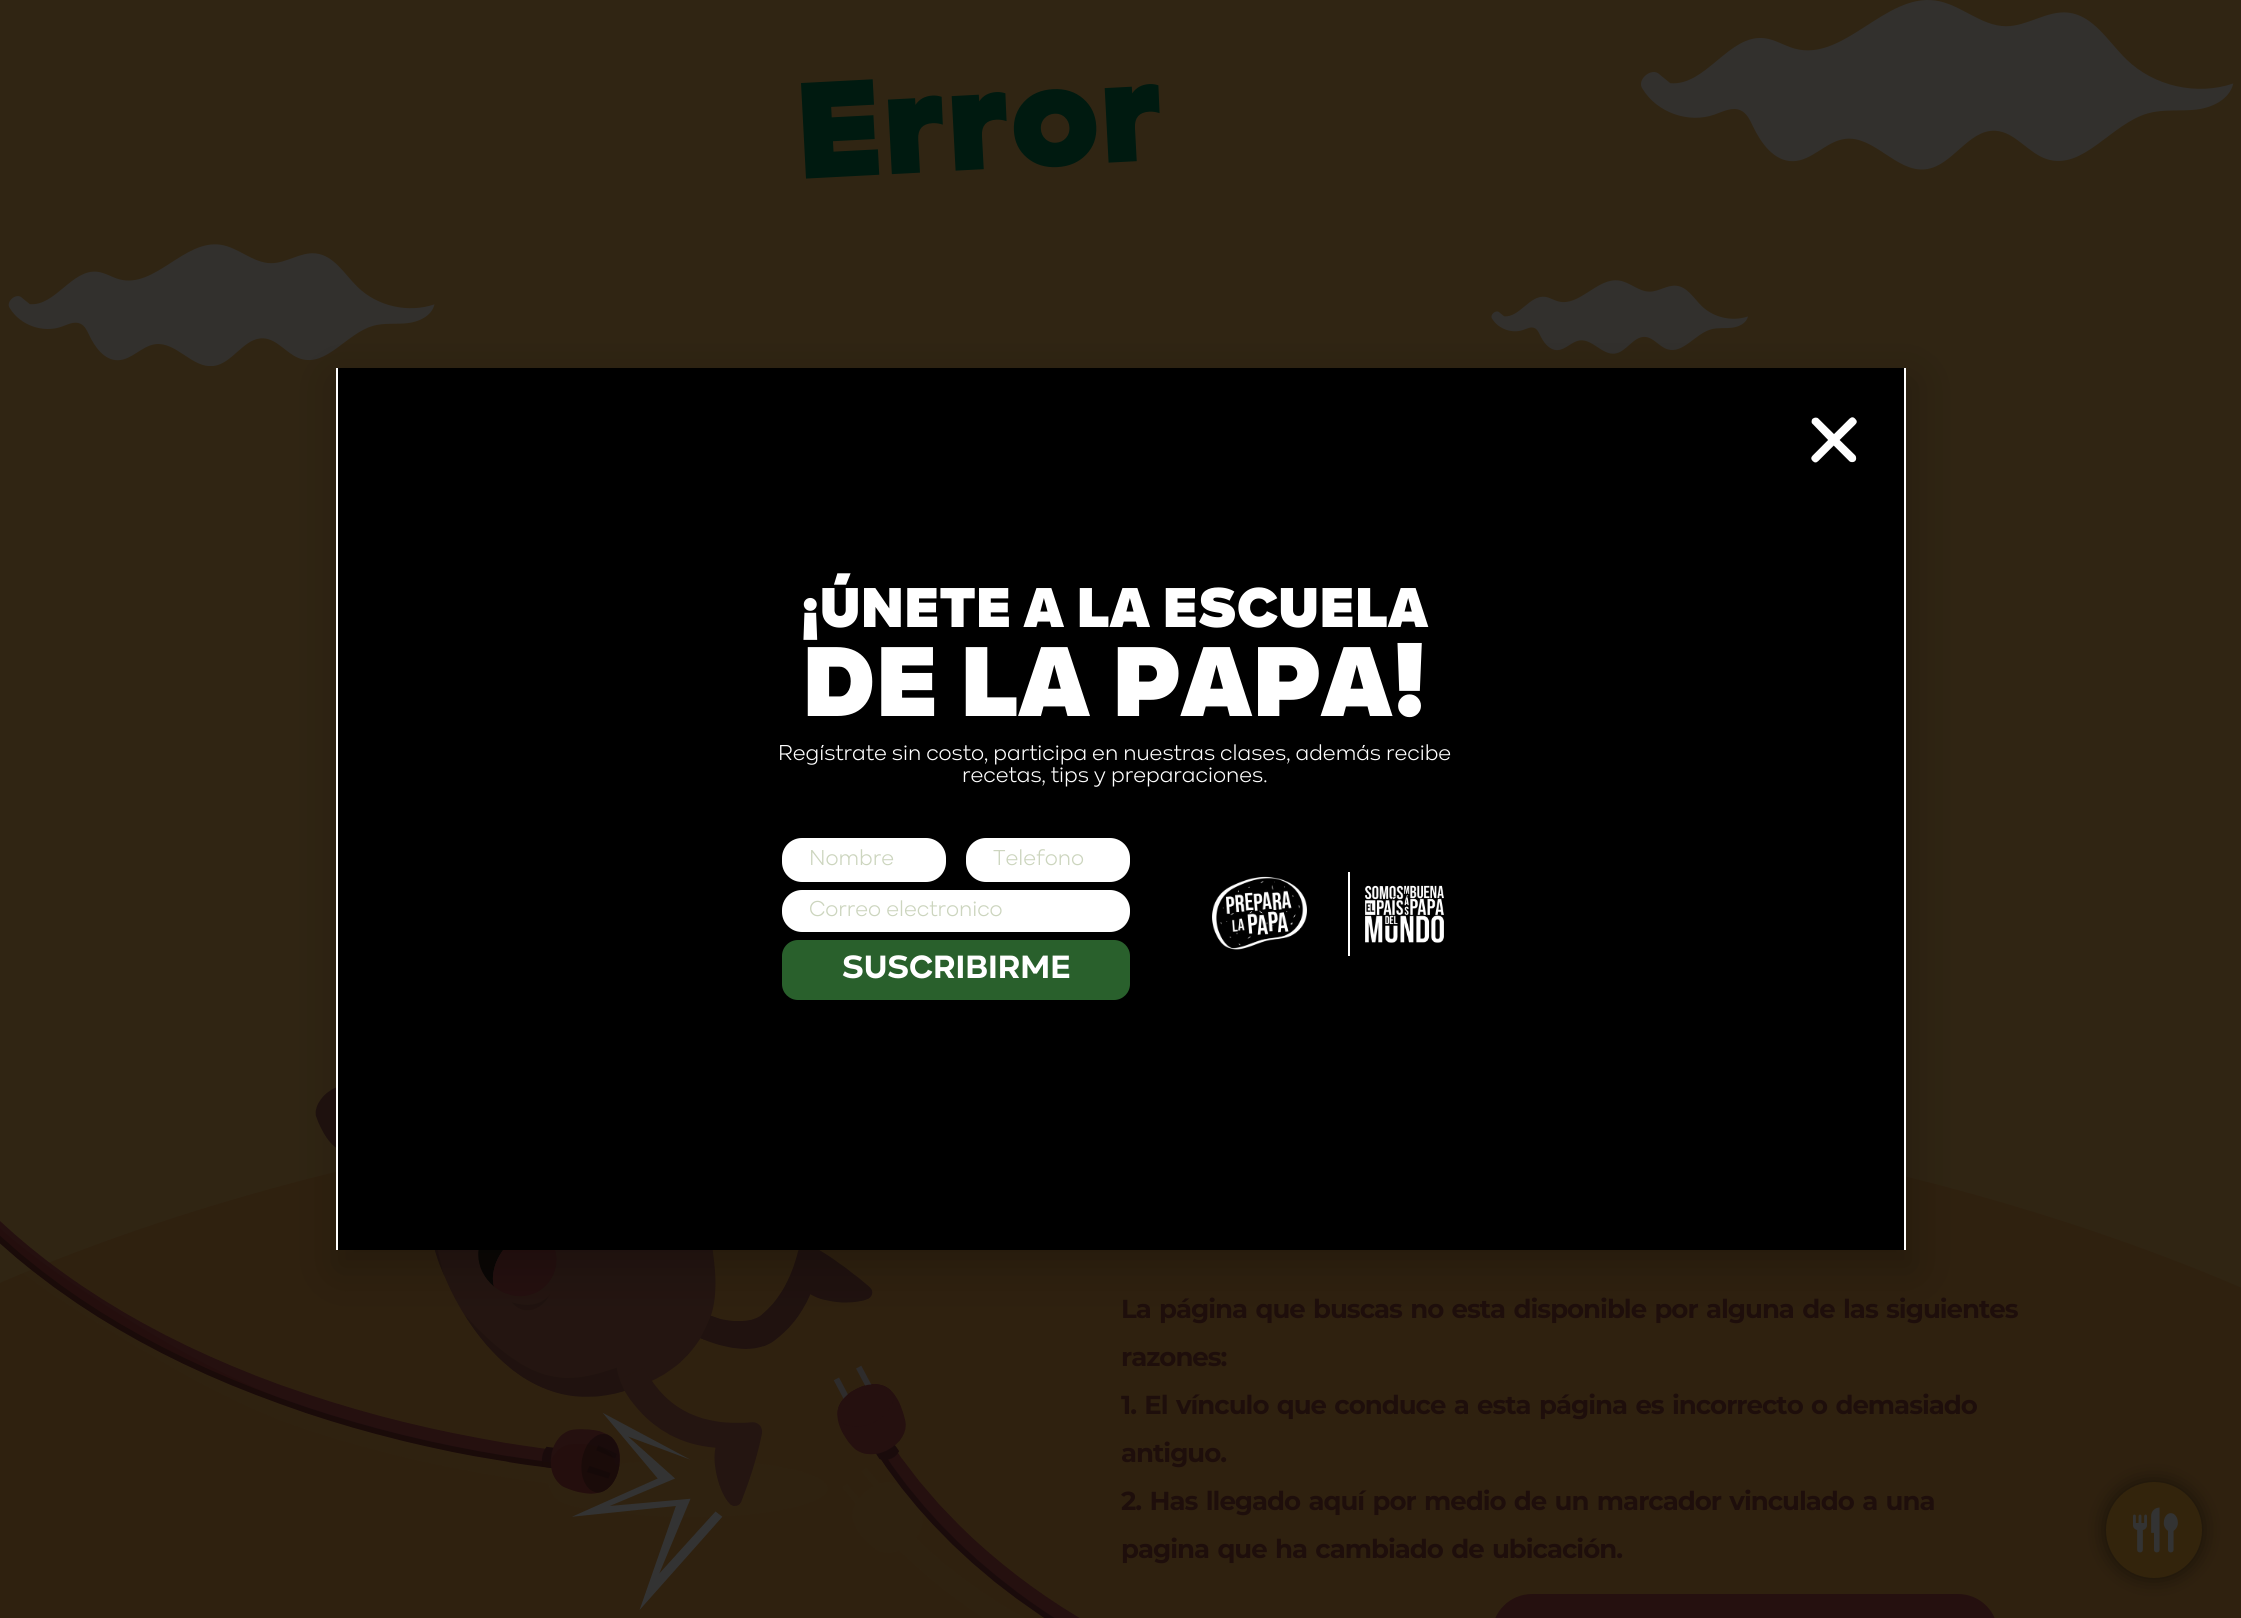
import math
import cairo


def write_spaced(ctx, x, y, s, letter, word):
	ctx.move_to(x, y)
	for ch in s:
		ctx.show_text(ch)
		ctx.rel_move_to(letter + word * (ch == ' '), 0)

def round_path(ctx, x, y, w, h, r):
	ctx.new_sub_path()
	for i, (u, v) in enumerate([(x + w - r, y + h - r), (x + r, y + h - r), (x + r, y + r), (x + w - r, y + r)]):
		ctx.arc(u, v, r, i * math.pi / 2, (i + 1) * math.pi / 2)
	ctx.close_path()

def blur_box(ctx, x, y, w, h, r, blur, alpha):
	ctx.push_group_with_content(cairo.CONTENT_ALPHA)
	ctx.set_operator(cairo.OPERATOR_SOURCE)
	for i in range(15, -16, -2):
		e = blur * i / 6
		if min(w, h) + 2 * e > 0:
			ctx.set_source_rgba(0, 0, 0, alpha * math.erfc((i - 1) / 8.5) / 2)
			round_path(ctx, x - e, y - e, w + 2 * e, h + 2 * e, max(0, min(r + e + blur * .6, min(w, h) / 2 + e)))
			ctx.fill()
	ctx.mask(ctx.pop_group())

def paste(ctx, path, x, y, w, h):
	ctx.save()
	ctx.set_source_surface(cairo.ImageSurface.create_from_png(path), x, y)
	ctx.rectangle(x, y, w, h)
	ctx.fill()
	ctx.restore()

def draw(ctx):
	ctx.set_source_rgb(0.188, 0.145, 0.075)
	ctx.paint()
	paste(ctx, 'media/1.png', 8, 0, 2226, 366)
	ctx.select_font_face('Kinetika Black')
	ctx.set_font_size(143)
	ctx.set_source_rgb(0, 0.102, 0.063)
	ctx.save()
	ctx.translate(798, 179)
	ctx.rotate(-3 * math.pi / 180)
	ctx.move_to(0, 0)
	ctx.show_text('Error')
	ctx.restore()
	ctx.set_source_rgb(0.184, 0.129, 0.059)
	ctx.new_path()
	ctx.move_to(-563, 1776)
	ctx.line_to(-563, 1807)
	ctx.line_to(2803, 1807)
	ctx.line_to(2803, 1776)
	ctx.curve_to(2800, 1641, 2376, 1093, 1120, 1087)
	ctx.curve_to(-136, 1082, -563, 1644, -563, 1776)
	ctx.close_path()
	ctx.fill()
	paste(ctx, 'media/2.png', 0, 1087, 1080, 531)
	ctx.select_font_face('Montserrat', cairo.FONT_SLANT_NORMAL, cairo.FONT_WEIGHT_BOLD)
	ctx.set_font_size(26)
	ctx.set_source_rgb(0.118, 0.055, 0.043)
	write_spaced(ctx, 1121, 1318, 'La página que buscas no esta disponible por alguna de las siguientes', -1, 2)
	write_spaced(ctx, 1121, 1366, 'razones:', -1, 0)
	write_spaced(ctx, 1121, 1414, '1. El vínculo que conduce a esta página es incorrecto o demasiado', -1, 2)
	write_spaced(ctx, 1121, 1462, 'antiguo.', -1, 0)
	write_spaced(ctx, 1121, 1510, '2. Has llegado aquí por medio de un marcador vinculado a una', -1, 2)
	write_spaced(ctx, 1121, 1558, 'pagina que ha cambiado de ubicación.', -1, 2)
	ctx.set_source_rgb(0.145, 0.063, 0.059)
	round_path(ctx, 1492, 1594, 506, 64, 40)
	ctx.fill()
	ctx.set_source_rgb(0, 0, 0)
	blur_box(ctx, 334, 378, 1582, 894, 0, 23, 0.2)
	ctx.set_source_rgb(1, 1, 1)
	ctx.rectangle(336, 368, 1570, 882)
	ctx.fill()
	ctx.set_source_rgb(0, 0, 0)
	ctx.rectangle(338, 368, 1566, 882)
	ctx.fill()
	paste(ctx, 'media/3.png', 1811, 417, 46, 46)
	ctx.select_font_face('Kinetika Black')
	ctx.set_font_size(58.25)
	ctx.set_source_rgb(1, 1, 1)
	ctx.move_to(801, 627)
	ctx.show_text('¡ÚNETE A LA ESCUELA')
	ctx.set_font_size(103)
	ctx.move_to(802, 716)
	ctx.show_text('DE LA PAPA!')
	ctx.select_font_face('Kinetika')
	ctx.set_font_size(22.4)
	ctx.move_to(778, 760)
	ctx.show_text('Regístrate sin costo, participa en nuestras clases, además recibe')
	ctx.move_to(962, 782)
	ctx.show_text('recetas, tips y preparaciones.')
	round_path(ctx, 782, 838, 164, 44, 20)
	ctx.fill()
	ctx.set_source_rgb(0.8, 0.835, 0.745)
	ctx.move_to(809, 865)
	ctx.show_text('Nombre')
	ctx.set_source_rgb(1, 1, 1)
	round_path(ctx, 966, 838, 164, 44, 20)
	ctx.fill()
	ctx.set_source_rgb(0.8, 0.835, 0.745)
	ctx.move_to(993, 865)
	ctx.show_text('Telefono')
	ctx.set_source_rgb(1, 1, 1)
	round_path(ctx, 782, 890, 348, 42, 20)
	ctx.fill()
	ctx.set_source_rgb(0.8, 0.835, 0.745)
	ctx.move_to(809, 916)
	ctx.show_text('Correo electronico')
	ctx.set_source_rgb(0.161, 0.376, 0.173)
	round_path(ctx, 782, 940, 348, 60, 16)
	ctx.fill()
	ctx.select_font_face('Kinetika', cairo.FONT_SLANT_NORMAL, cairo.FONT_WEIGHT_BOLD)
	ctx.set_font_size(33.5)
	ctx.set_source_rgb(1, 1, 1)
	ctx.move_to(842, 978)
	ctx.show_text('SUSCRIBIRME')
	paste(ctx, 'media/4.png', 1212, 876, 95, 74)
	ctx.rectangle(1348, 872, 2, 84)
	ctx.fill()
	paste(ctx, 'media/5.png', 1365, 885, 79, 58)
	ctx.set_source_rgb(0, 0, 0)
	blur_box(ctx, 2106, 1482, 96, 96, 48, 10, 0.5)
	ctx.set_source_rgb(0.2, 0.141, 0.047)
	ctx.arc(2154, 1530, 48, 0, 2 * math.pi)
	ctx.fill()
	paste(ctx, 'media/6.png', 2133, 1507, 45, 46)


surface = cairo.ImageSurface(cairo.FORMAT_RGB24, 2241, 1618)
ctx = cairo.Context(surface)
options = cairo.FontOptions()
options.set_hint_metrics(cairo.HINT_METRICS_OFF)
options.set_hint_style(cairo.HINT_STYLE_NONE)
ctx.set_font_options(options)
ctx.set_miter_limit(4)
draw(ctx)
surface.write_to_png('image.png')
